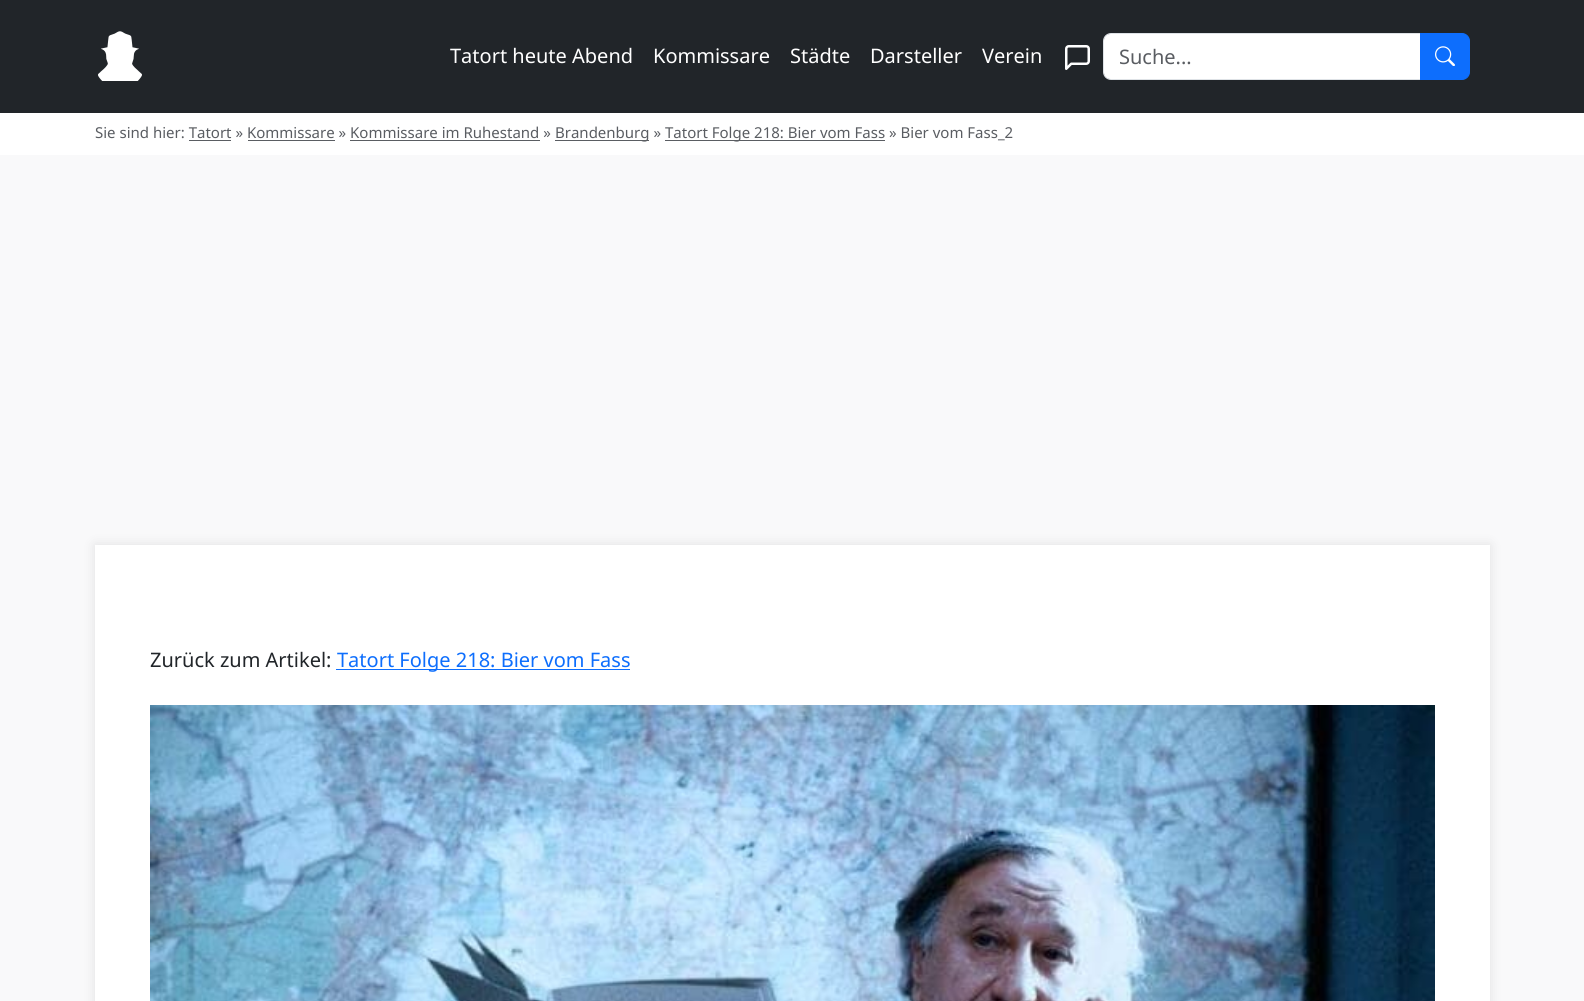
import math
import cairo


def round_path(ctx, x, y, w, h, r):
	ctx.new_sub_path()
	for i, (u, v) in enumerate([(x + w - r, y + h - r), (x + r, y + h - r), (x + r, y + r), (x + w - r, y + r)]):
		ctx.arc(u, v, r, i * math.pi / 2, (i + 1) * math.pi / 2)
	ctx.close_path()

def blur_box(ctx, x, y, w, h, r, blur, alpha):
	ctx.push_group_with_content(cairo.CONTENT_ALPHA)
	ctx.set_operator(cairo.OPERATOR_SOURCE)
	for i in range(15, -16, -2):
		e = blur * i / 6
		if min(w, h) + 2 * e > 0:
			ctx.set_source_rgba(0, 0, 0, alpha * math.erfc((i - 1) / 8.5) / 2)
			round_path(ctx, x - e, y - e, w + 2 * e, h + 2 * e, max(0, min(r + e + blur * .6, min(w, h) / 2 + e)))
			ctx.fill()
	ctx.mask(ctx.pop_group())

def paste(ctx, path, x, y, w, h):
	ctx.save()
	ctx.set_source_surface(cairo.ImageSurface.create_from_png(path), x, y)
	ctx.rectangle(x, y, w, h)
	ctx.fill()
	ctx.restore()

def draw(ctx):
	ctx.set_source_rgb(0.973, 0.976, 0.98)
	ctx.paint()
	ctx.set_source_rgb(0.129, 0.145, 0.161)
	ctx.rectangle(0, 0, 1584, 113)
	ctx.fill()
	paste(ctx, 'media/1.png', 98, 31, 44, 50)
	ctx.select_font_face('Noto Sans')
	ctx.set_font_size(20)
	ctx.set_source_rgb(1, 1, 1)
	for x, y, s in [
		(450, 63, 'Tatort heute Abend'),
		(653, 63, 'Kommissare'),
		(790, 63, 'Städte'),
		(870, 63, 'Darsteller'),
		(982, 63, 'Verein'),
	]:
		ctx.move_to(x, y)
		ctx.show_text(s)
	paste(ctx, 'media/2.png', 1065, 45, 25, 25)
	ctx.new_path()
	ctx.move_to(1110, 34)
	ctx.line_to(1420, 34)
	ctx.line_to(1420, 79)
	ctx.line_to(1110, 79)
	ctx.curve_to(1106.5, 79, 1104, 76.5, 1104, 73)
	ctx.line_to(1104, 40)
	ctx.curve_to(1104, 36.5, 1106.5, 34, 1110, 34)
	ctx.close_path()
	ctx.fill()
	ctx.new_path()
	ctx.move_to(1111, 33.5)
	ctx.line_to(1420.5, 33.5)
	ctx.line_to(1420.5, 79.5)
	ctx.line_to(1111, 79.5)
	ctx.curve_to(1107, 79.5, 1103.5, 76, 1103.5, 72)
	ctx.line_to(1103.5, 41)
	ctx.curve_to(1103.5, 37, 1107, 33.5, 1111, 33.5)
	ctx.close_path()
	ctx.set_source_rgb(0.871, 0.886, 0.902)
	ctx.set_line_width(1)
	ctx.stroke()
	ctx.set_source_rgb(0.353, 0.365, 0.384)
	ctx.move_to(1119, 64)
	ctx.show_text('Suche...')
	ctx.set_source_rgb(0.051, 0.431, 0.992)
	ctx.new_path()
	ctx.move_to(1420.5, 33.5)
	ctx.line_to(1462, 33.5)
	ctx.curve_to(1466, 33.5, 1469.5, 37, 1469.5, 41)
	ctx.line_to(1469.5, 72)
	ctx.curve_to(1469.5, 76, 1466, 79.5, 1462, 79.5)
	ctx.line_to(1420.5, 79.5)
	ctx.close_path()
	ctx.fill_preserve()
	ctx.stroke()
	paste(ctx, 'media/3.png', 1435, 46, 20, 20)
	ctx.set_source_rgb(1, 1, 1)
	ctx.rectangle(0, 113, 1584, 42)
	ctx.fill()
	ctx.set_font_size(15)
	ctx.set_source_rgb(0.353, 0.365, 0.384)
	ctx.move_to(95, 138)
	ctx.show_text('Sie sind hier: Tatort » Kommissare » Kommissare im Ruhestand »')
	ctx.rectangle(555, 140, 94, 1)
	ctx.fill()
	ctx.move_to(555, 138)
	ctx.show_text('Brandenburg »')
	ctx.rectangle(189, 140, 42, 1)
	ctx.rectangle(248, 140, 87, 1)
	ctx.rectangle(350, 140, 190, 1)
	ctx.rectangle(665, 140, 220, 1)
	ctx.fill()
	ctx.move_to(665, 138)
	ctx.show_text('Tatort Folge 218: Bier vom Fass » Bier vom Fass_2')
	ctx.set_source_rgb(0, 0, 0)
	blur_box(ctx, 95, 545, 1395, 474, 0, 6, 0.1)
	ctx.set_source_rgb(1, 1, 1)
	ctx.rectangle(95, 545, 1395, 456)
	ctx.fill()
	ctx.set_font_size(20)
	ctx.set_source_rgb(0.129, 0.145, 0.161)
	ctx.move_to(150, 667)
	ctx.show_text('Zurück zum Artikel:')
	ctx.set_source_rgb(0.051, 0.431, 0.992)
	ctx.rectangle(336, 669, 294, 1)
	ctx.fill()
	ctx.move_to(337, 667)
	ctx.show_text('Tatort Folge 218: Bier vom Fass')
	paste(ctx, 'media/4.png', 150, 705, 1285, 296)


surface = cairo.ImageSurface(cairo.FORMAT_RGB24, 1584, 1001)
ctx = cairo.Context(surface)
options = cairo.FontOptions()
options.set_hint_metrics(cairo.HINT_METRICS_OFF)
options.set_hint_style(cairo.HINT_STYLE_NONE)
ctx.set_font_options(options)
ctx.set_miter_limit(4)
draw(ctx)
surface.write_to_png('image.png')
